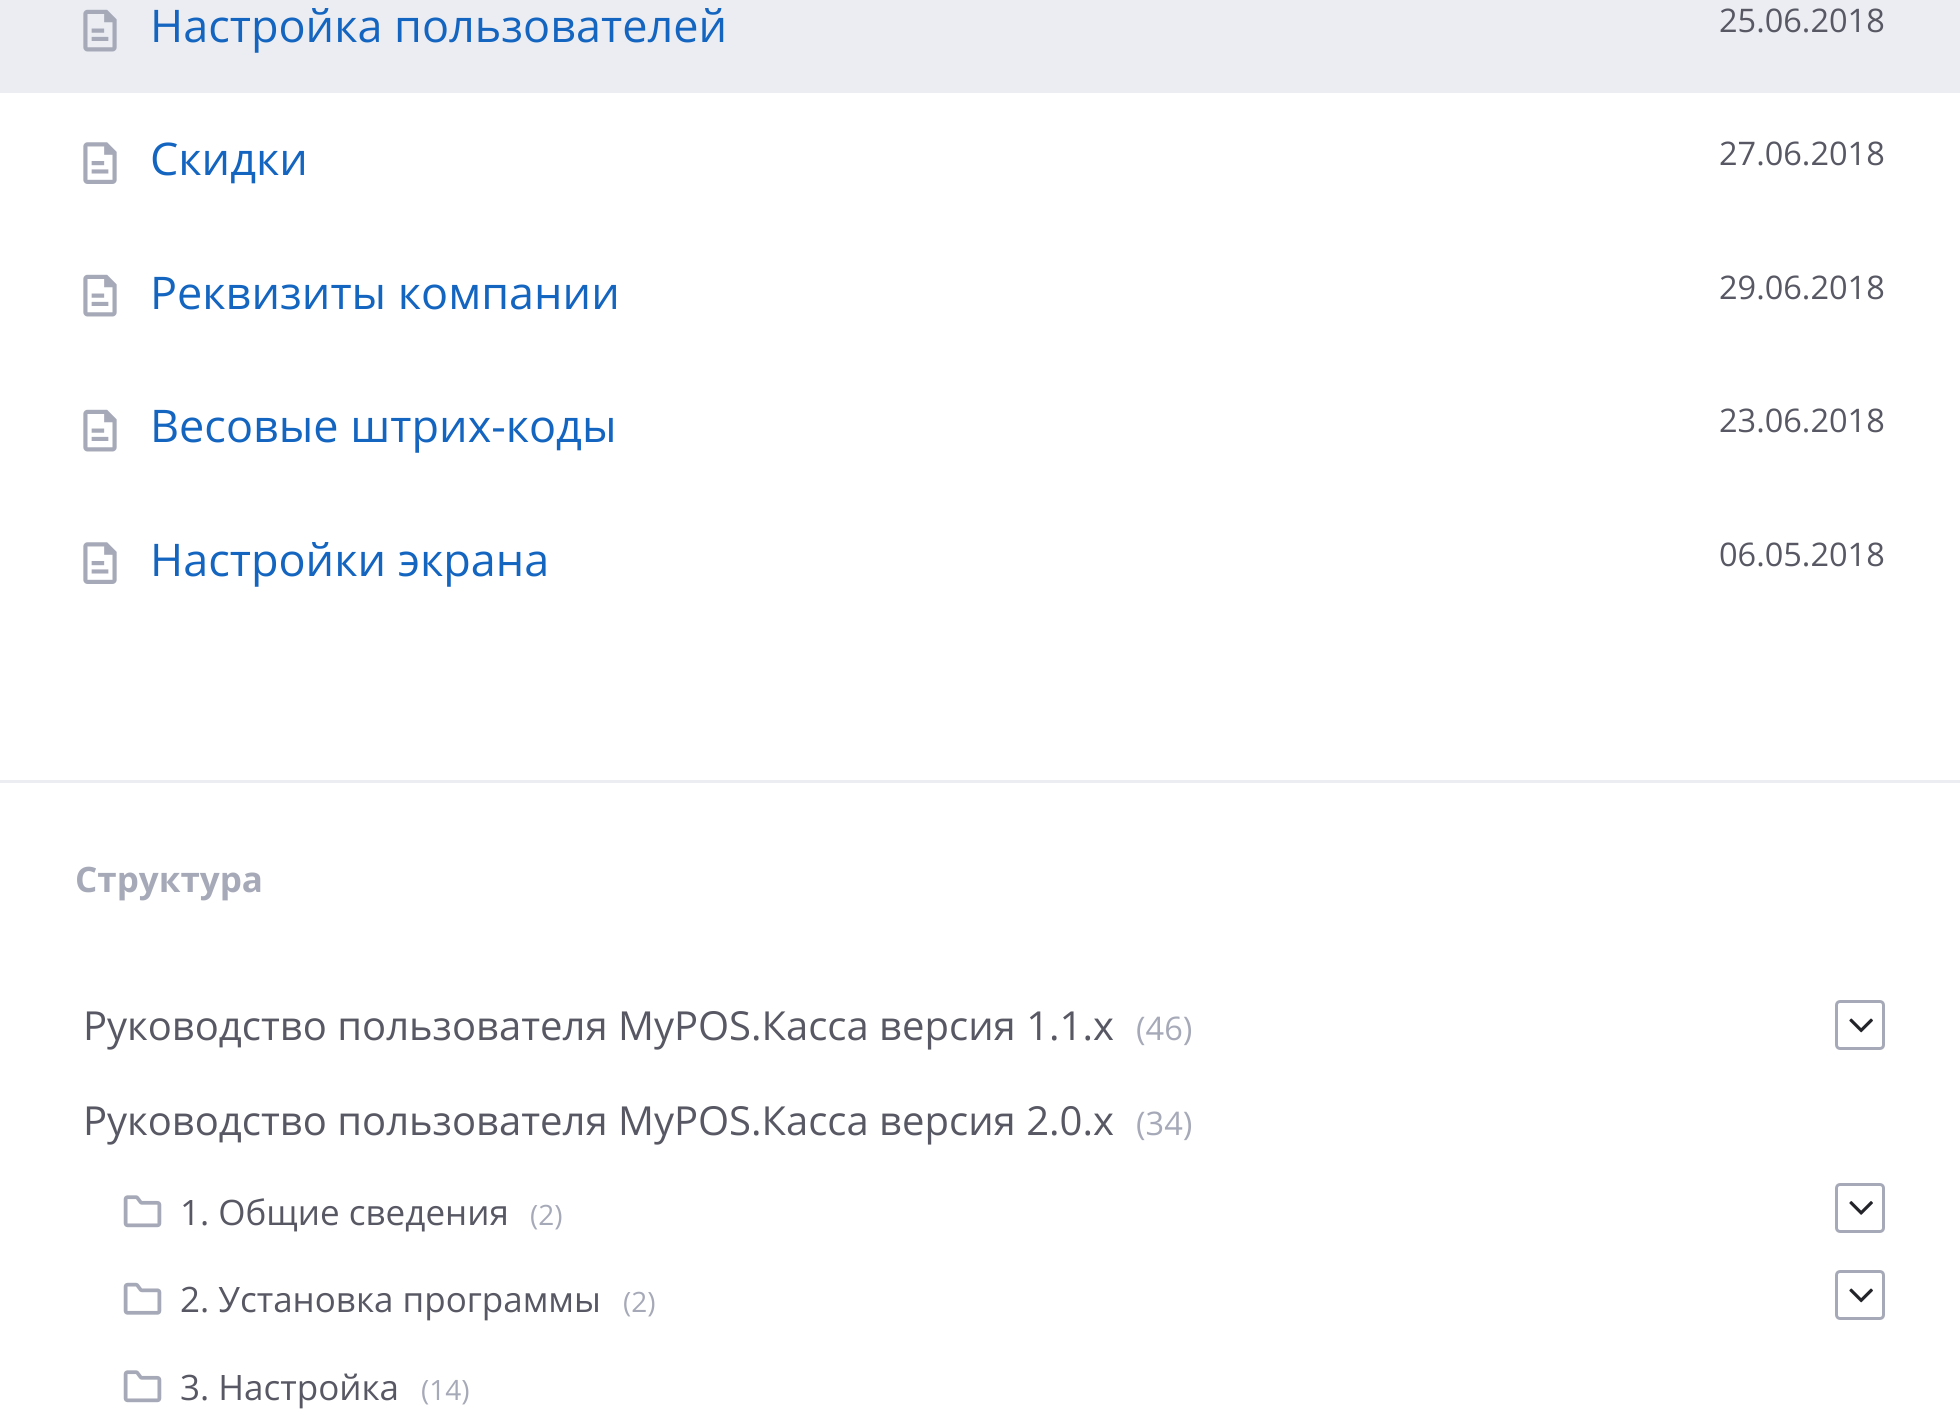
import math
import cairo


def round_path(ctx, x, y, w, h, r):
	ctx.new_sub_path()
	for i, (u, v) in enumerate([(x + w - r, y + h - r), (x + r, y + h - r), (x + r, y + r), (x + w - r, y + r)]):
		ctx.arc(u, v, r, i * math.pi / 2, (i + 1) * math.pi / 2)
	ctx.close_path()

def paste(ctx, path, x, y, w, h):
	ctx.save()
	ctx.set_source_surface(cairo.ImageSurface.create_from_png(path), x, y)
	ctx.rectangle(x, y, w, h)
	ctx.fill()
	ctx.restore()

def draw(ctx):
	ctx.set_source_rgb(1, 1, 1)
	ctx.paint()
	ctx.set_source_rgb(0.918, 0.929, 0.953)
	ctx.rectangle(0, 0, 1960, 93)
	ctx.fill()
	paste(ctx, 'media/1.png', 83, 9, 34, 43)
	ctx.select_font_face('Open Sans')
	ctx.set_font_size(45)
	ctx.set_source_rgb(0.082, 0.396, 0.753)
	ctx.move_to(150, 42)
	ctx.show_text('Настройка пользователей')
	ctx.set_font_size(32.5)
	ctx.set_source_rgb(0.341, 0.345, 0.388)
	ctx.move_to(1719, 32)
	ctx.show_text('25.06.2018')
	paste(ctx, 'media/2.png', 83, 142, 34, 42)
	ctx.set_font_size(45)
	ctx.set_source_rgb(0.082, 0.396, 0.753)
	ctx.move_to(150, 175)
	ctx.show_text('Скидки')
	ctx.set_font_size(32.5)
	ctx.set_source_rgb(0.341, 0.345, 0.388)
	ctx.move_to(1719, 165)
	ctx.show_text('27.06.2018')
	paste(ctx, 'media/3.png', 83, 274, 34, 43)
	ctx.set_font_size(45)
	ctx.set_source_rgb(0.082, 0.396, 0.753)
	ctx.move_to(150, 309)
	ctx.show_text('Реквизиты компании')
	ctx.set_font_size(32.5)
	ctx.set_source_rgb(0.341, 0.345, 0.388)
	ctx.move_to(1719, 299)
	ctx.show_text('29.06.2018')
	paste(ctx, 'media/3.png', 83, 409, 34, 43)
	ctx.set_font_size(45)
	ctx.set_source_rgb(0.082, 0.396, 0.753)
	ctx.move_to(150, 442)
	ctx.show_text('Весовые штрих-коды')
	ctx.set_font_size(32.5)
	ctx.set_source_rgb(0.341, 0.345, 0.388)
	ctx.move_to(1719, 432)
	ctx.show_text('23.06.2018')
	paste(ctx, 'media/2.png', 83, 542, 34, 42)
	ctx.set_font_size(45)
	ctx.set_source_rgb(0.082, 0.396, 0.753)
	ctx.move_to(150, 576)
	ctx.show_text('Настройки экрана')
	ctx.set_font_size(32.5)
	ctx.set_source_rgb(0.341, 0.345, 0.388)
	ctx.move_to(1719, 566)
	ctx.show_text('06.05.2018')
	ctx.set_source_rgb(0.918, 0.929, 0.953)
	ctx.rectangle(0, 780, 1960, 3)
	ctx.fill()
	ctx.select_font_face('Open Sans', cairo.FONT_SLANT_NORMAL, cairo.FONT_WEIGHT_BOLD)
	ctx.set_font_size(35)
	ctx.set_source_rgb(0.651, 0.663, 0.718)
	ctx.move_to(75, 892)
	ctx.show_text('Структура')
	ctx.select_font_face('Open Sans')
	ctx.set_font_size(40)
	ctx.set_source_rgb(0.341, 0.345, 0.388)
	ctx.move_to(83, 1040)
	ctx.show_text('Руководство пользователя MyPOS.Касса версия 1.1.х')
	ctx.set_font_size(32.5)
	ctx.set_source_rgb(0.651, 0.663, 0.718)
	ctx.move_to(1136, 1040)
	ctx.show_text('(46)')
	round_path(ctx, 1836.5, 1001.5, 47, 47, 3.5)
	ctx.set_line_width(3)
	ctx.stroke()
	paste(ctx, 'media/4.png', 1849, 1018, 24, 15)
	ctx.set_font_size(40)
	ctx.set_source_rgb(0.341, 0.345, 0.388)
	ctx.move_to(83, 1135)
	ctx.show_text('Руководство пользователя MyPOS.Касса версия 2.0.x')
	ctx.set_font_size(32.5)
	ctx.set_source_rgb(0.651, 0.663, 0.718)
	ctx.move_to(1136, 1135)
	ctx.show_text('(34)')
	paste(ctx, 'media/5.png', 123, 1195, 39, 33)
	ctx.set_font_size(35)
	ctx.set_source_rgb(0.341, 0.345, 0.388)
	ctx.move_to(180, 1225)
	ctx.show_text('1. Общие сведения')
	ctx.set_font_size(28)
	ctx.set_source_rgb(0.651, 0.663, 0.718)
	ctx.move_to(530, 1225)
	ctx.show_text('(2)')
	round_path(ctx, 1836.5, 1184.5, 47, 47, 3.5)
	ctx.stroke()
	paste(ctx, 'media/6.png', 1849, 1201, 24, 14)
	paste(ctx, 'media/7.png', 123, 1282, 39, 33)
	ctx.set_font_size(35)
	ctx.set_source_rgb(0.341, 0.345, 0.388)
	ctx.move_to(180, 1312)
	ctx.show_text('2. Установка программы')
	ctx.set_font_size(28)
	ctx.set_source_rgb(0.651, 0.663, 0.718)
	ctx.move_to(623, 1312)
	ctx.show_text('(2)')
	round_path(ctx, 1836.5, 1271.5, 47, 47, 3.5)
	ctx.stroke()
	paste(ctx, 'media/4.png', 1849, 1288, 24, 15)
	paste(ctx, 'media/5.png', 123, 1370, 39, 33)
	ctx.set_font_size(35)
	ctx.set_source_rgb(0.341, 0.345, 0.388)
	ctx.move_to(180, 1400)
	ctx.show_text('3. Настройка')
	ctx.set_font_size(28)
	ctx.set_source_rgb(0.651, 0.663, 0.718)
	ctx.move_to(421, 1400)
	ctx.show_text('(14)')


surface = cairo.ImageSurface(cairo.FORMAT_RGB24, 1960, 1422)
ctx = cairo.Context(surface)
options = cairo.FontOptions()
options.set_hint_metrics(cairo.HINT_METRICS_OFF)
options.set_hint_style(cairo.HINT_STYLE_NONE)
ctx.set_font_options(options)
ctx.set_miter_limit(4)
draw(ctx)
surface.write_to_png('image.png')
